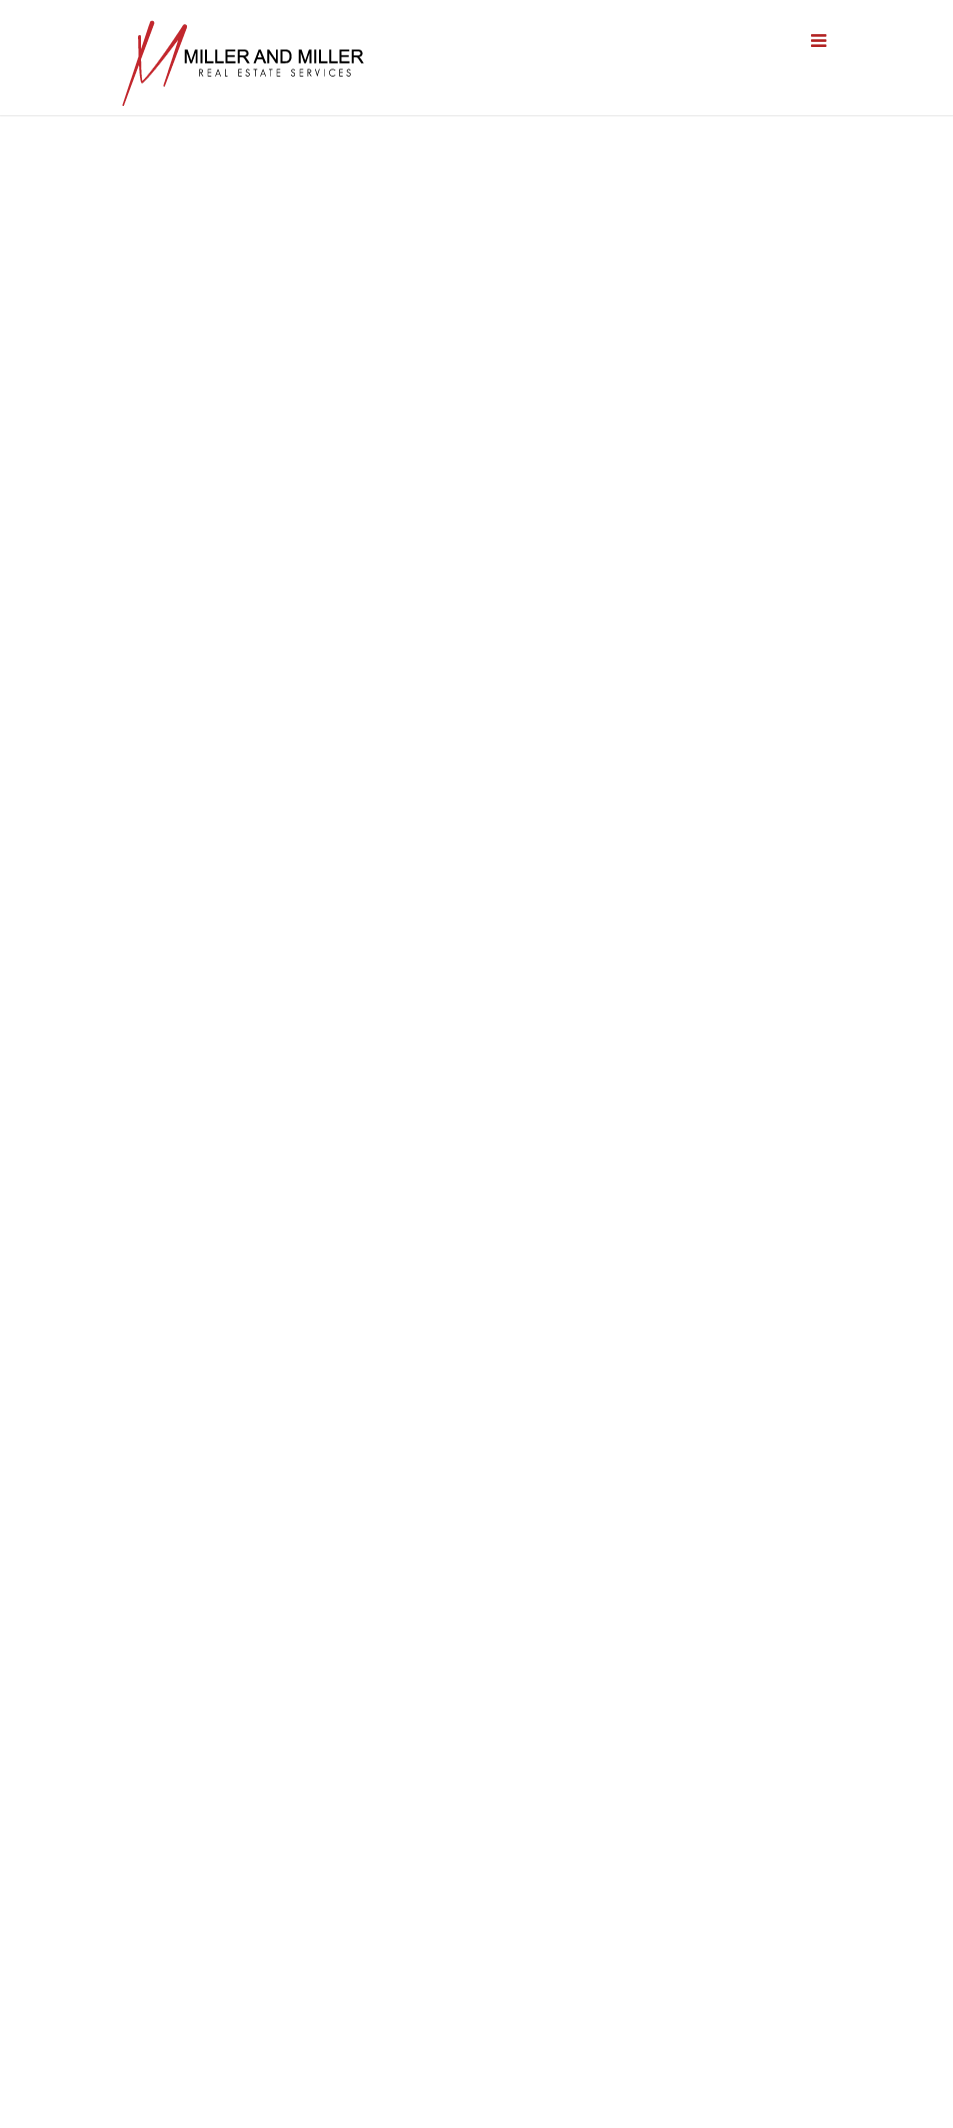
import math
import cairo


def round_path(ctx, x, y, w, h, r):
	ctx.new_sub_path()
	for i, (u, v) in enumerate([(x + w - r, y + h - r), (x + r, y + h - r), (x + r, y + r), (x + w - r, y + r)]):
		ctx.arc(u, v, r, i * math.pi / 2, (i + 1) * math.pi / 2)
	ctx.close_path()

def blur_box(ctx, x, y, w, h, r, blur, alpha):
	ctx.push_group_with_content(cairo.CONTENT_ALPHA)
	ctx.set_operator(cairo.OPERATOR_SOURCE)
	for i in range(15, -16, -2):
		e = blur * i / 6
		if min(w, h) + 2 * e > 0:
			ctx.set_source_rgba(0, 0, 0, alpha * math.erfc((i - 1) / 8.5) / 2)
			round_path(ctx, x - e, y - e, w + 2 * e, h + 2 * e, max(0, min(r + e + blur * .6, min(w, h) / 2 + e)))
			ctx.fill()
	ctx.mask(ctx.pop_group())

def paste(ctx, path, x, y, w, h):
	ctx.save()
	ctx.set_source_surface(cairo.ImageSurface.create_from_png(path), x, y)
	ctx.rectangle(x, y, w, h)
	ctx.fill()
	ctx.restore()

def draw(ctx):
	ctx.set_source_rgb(1, 1, 1)
	ctx.paint()
	ctx.save()
	ctx.rectangle(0, 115, 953, 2)
	ctx.clip()
	ctx.set_source_rgb(0, 0, 0)
	blur_box(ctx, 0, 1, 953, 115, 0, 1, 0.1)
	ctx.restore()
	paste(ctx, 'media/1.png', 122, 20, 242, 86)
	paste(ctx, 'media/2.png', 811, 34, 16, 13)


surface = cairo.ImageSurface(cairo.FORMAT_RGB24, 953, 2128)
ctx = cairo.Context(surface)
options = cairo.FontOptions()
options.set_hint_metrics(cairo.HINT_METRICS_OFF)
options.set_hint_style(cairo.HINT_STYLE_NONE)
ctx.set_font_options(options)
ctx.set_miter_limit(4)
draw(ctx)
surface.write_to_png('image.png')
